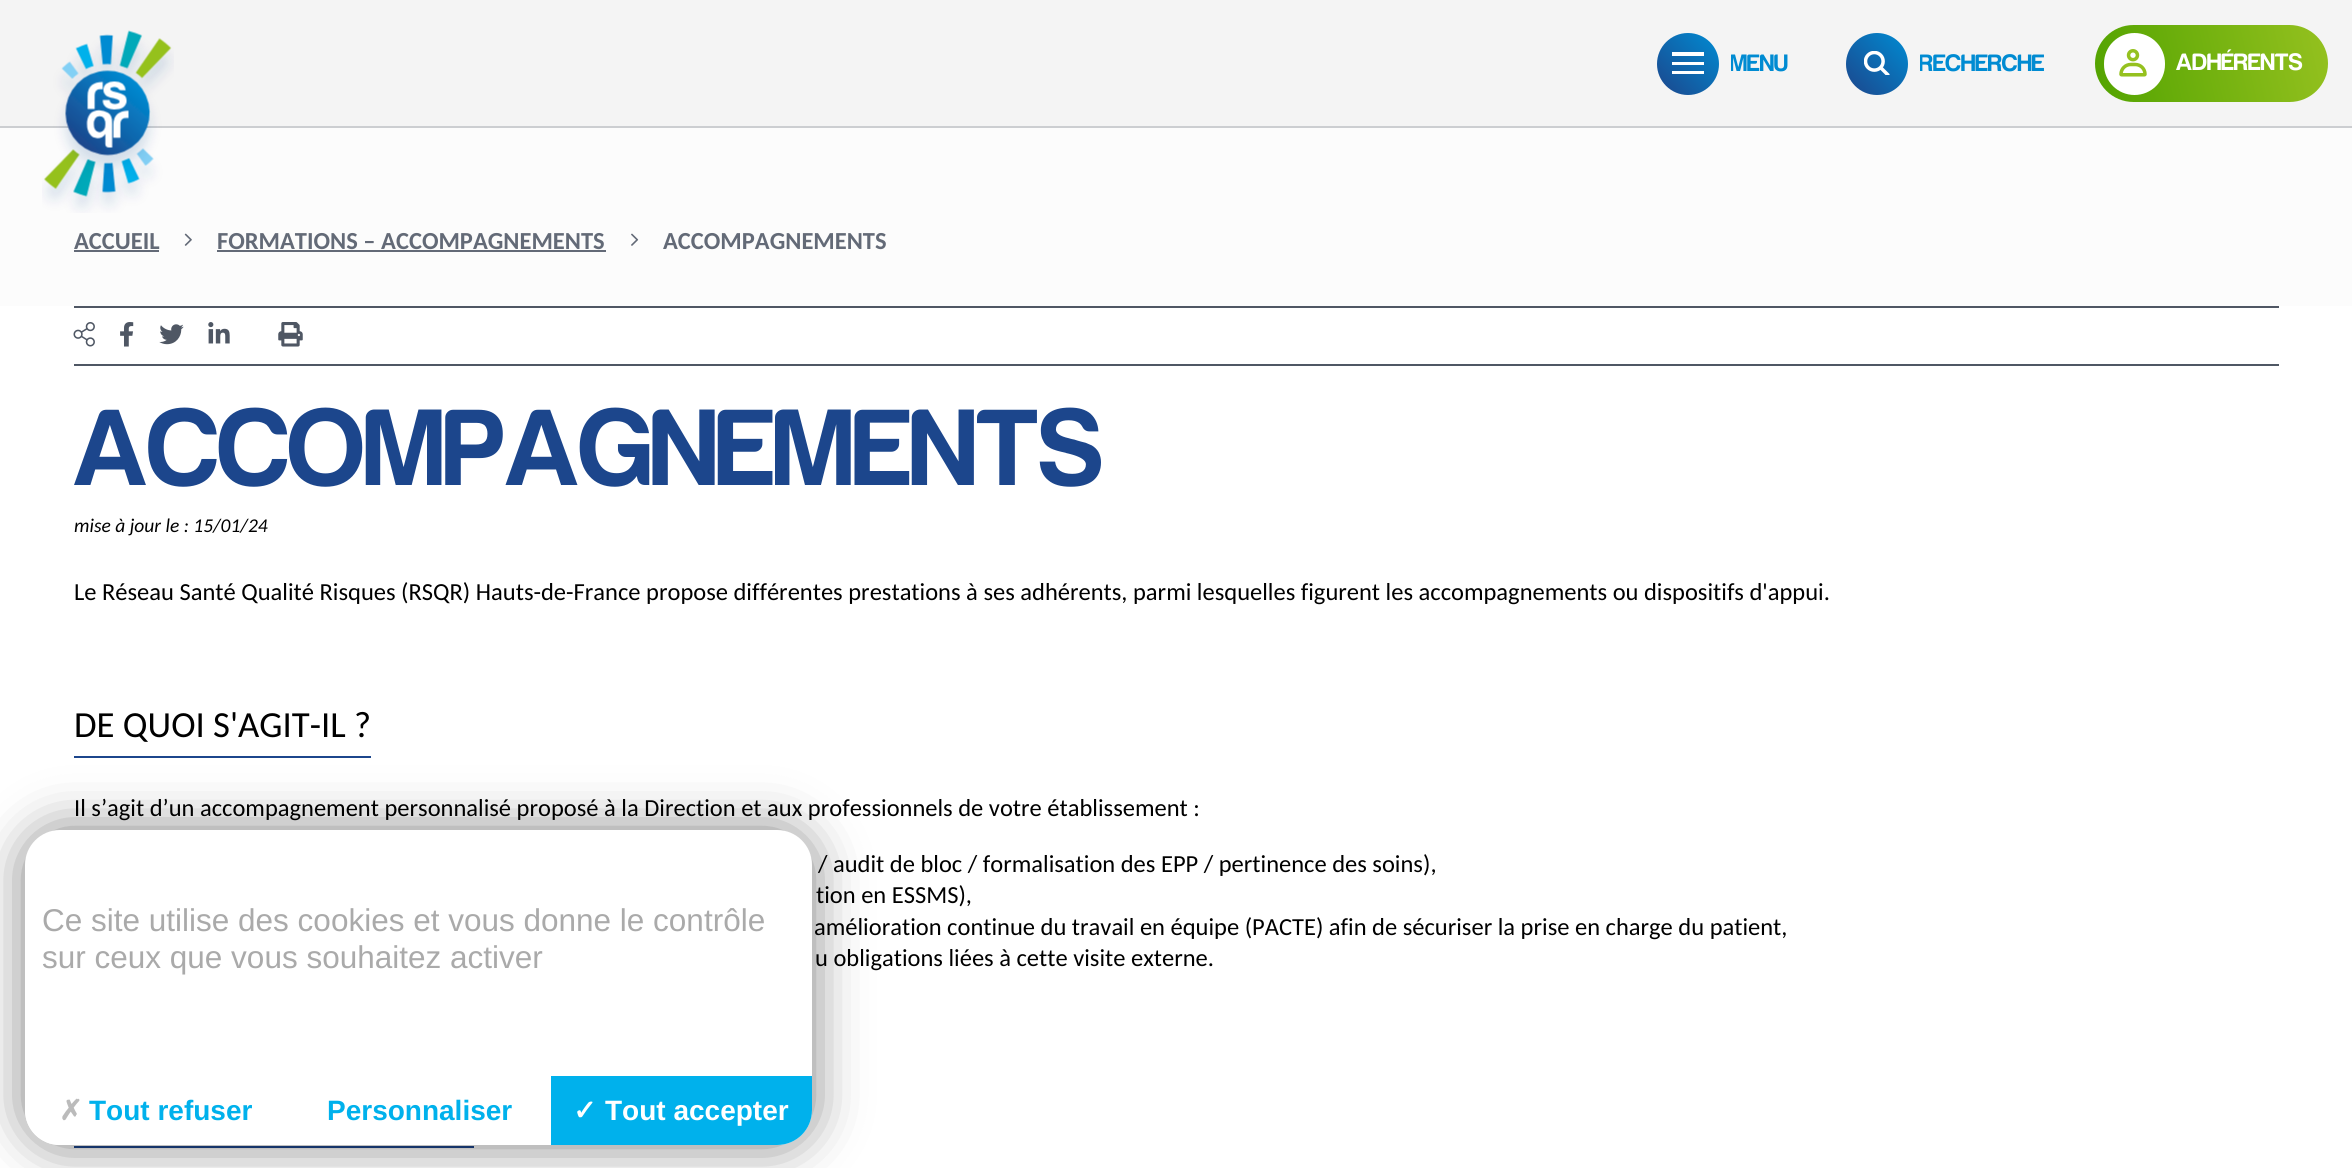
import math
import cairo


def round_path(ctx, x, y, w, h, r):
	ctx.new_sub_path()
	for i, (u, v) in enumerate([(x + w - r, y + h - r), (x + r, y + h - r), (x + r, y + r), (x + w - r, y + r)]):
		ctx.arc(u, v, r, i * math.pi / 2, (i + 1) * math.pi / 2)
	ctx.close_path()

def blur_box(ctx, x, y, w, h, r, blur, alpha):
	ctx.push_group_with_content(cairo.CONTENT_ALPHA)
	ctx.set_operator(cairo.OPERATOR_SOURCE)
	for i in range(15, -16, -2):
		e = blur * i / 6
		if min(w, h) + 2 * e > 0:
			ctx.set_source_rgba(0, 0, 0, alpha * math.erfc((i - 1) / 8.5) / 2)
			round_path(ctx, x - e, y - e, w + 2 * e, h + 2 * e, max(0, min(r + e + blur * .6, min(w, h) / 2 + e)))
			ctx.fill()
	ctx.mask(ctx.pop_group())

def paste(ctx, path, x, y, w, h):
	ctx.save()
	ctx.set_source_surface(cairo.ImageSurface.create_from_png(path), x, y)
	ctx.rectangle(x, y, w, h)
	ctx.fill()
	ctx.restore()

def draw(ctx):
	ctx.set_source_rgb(1, 1, 1)
	ctx.paint()
	ctx.set_source_rgb(0.957, 0.957, 0.957)
	ctx.rectangle(0, 0, 2352, 126)
	ctx.fill()
	ctx.set_source_rgb(0.8, 0.808, 0.82)
	ctx.rectangle(0, 126, 2352, 2)
	ctx.fill()
	ctx.set_source_rgb(0.988, 0.988, 0.988)
	ctx.rectangle(0, 128, 2352, 178)
	ctx.fill()
	paste(ctx, 'media/1.png', 42, 30, 132, 183)
	gradient = cairo.LinearGradient(1656, 93, 1718, 33)
	gradient.add_color_stop_rgba(0, 0.11, 0.275, 0.549, 1)
	gradient.add_color_stop_rgba(1, 0, 0.545, 0.824, 1)
	ctx.set_source(gradient)
	ctx.arc(1688, 64, 31, 0, 2 * math.pi)
	ctx.fill()
	ctx.set_source_rgb(1, 1, 1)
	ctx.rectangle(1672, 52, 32, 4)
	ctx.rectangle(1672, 62, 32, 3)
	ctx.rectangle(1672, 71, 32, 3)
	ctx.fill()
	ctx.save()
	ctx.rectangle(1731, 51, 58, 26)
	ctx.clip()
	ctx.select_font_face('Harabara', cairo.FONT_SLANT_NORMAL, cairo.FONT_WEIGHT_BOLD)
	ctx.set_font_size(24.5)
	ctx.set_source_rgb(0, 0.545, 0.824)
	ctx.move_to(1730, 71)
	ctx.show_text('MENU')
	ctx.restore()
	gradient = cairo.LinearGradient(1845, 93, 1907, 33)
	gradient.add_color_stop_rgba(0, 0.11, 0.275, 0.549, 1)
	gradient.add_color_stop_rgba(1, 0, 0.545, 0.824, 1)
	ctx.set_source(gradient)
	ctx.new_path()
	ctx.arc(1877, 64, 31, 0, 2 * math.pi)
	ctx.fill()
	paste(ctx, 'media/2.png', 1864, 51, 26, 24)
	ctx.save()
	ctx.rectangle(1920, 51, 126, 26)
	ctx.clip()
	ctx.select_font_face('Harabara', cairo.FONT_SLANT_NORMAL, cairo.FONT_WEIGHT_BOLD)
	ctx.set_font_size(24.5)
	ctx.set_source_rgb(0, 0.545, 0.824)
	ctx.move_to(1919, 71)
	ctx.show_text('RECHERCHE')
	ctx.restore()
	gradient = cairo.LinearGradient(2092, 90, 2330, 36)
	gradient.add_color_stop_rgba(0, 0.322, 0.639, 0, 1)
	gradient.add_color_stop_rgba(1, 0.584, 0.757, 0.122, 1)
	ctx.set_source(gradient)
	round_path(ctx, 2095, 25, 233, 77, 38.5)
	ctx.fill()
	ctx.set_source_rgb(1, 1, 1)
	round_path(ctx, 2104, 33, 61, 62, 30.5)
	ctx.fill()
	paste(ctx, 'media/3.png', 2119, 49, 28, 28)
	ctx.select_font_face('Harabara', cairo.FONT_SLANT_NORMAL, cairo.FONT_WEIGHT_BOLD)
	ctx.set_font_size(24.5)
	ctx.move_to(2176, 70)
	ctx.show_text('ADHÉRENTS')
	ctx.select_font_face('Carlito', cairo.FONT_SLANT_NORMAL, cairo.FONT_WEIGHT_BOLD)
	ctx.set_source_rgb(0.388, 0.416, 0.467)
	ctx.move_to(74, 249)
	ctx.show_text('ACCUEIL')
	ctx.rectangle(74, 250, 85, 2)
	ctx.fill()
	paste(ctx, 'media/4.png', 184, 233, 8, 13)
	ctx.move_to(217, 249)
	ctx.show_text('FORMATIONS – ACCOMPAGNEMENTS')
	ctx.rectangle(217, 250, 389, 2)
	ctx.fill()
	paste(ctx, 'media/5.png', 631, 233, 8, 13)
	ctx.move_to(663, 249)
	ctx.show_text('ACCOMPAGNEMENTS')
	ctx.set_source_rgb(0.31, 0.341, 0.392)
	ctx.rectangle(74, 306, 2205, 2)
	ctx.fill()
	ctx.rectangle(74, 364, 2205, 2)
	ctx.fill()
	paste(ctx, 'media/6.png', 73, 322, 22, 25)
	paste(ctx, 'media/7.png', 120, 322, 14, 25)
	paste(ctx, 'media/8.png', 159, 324, 25, 21)
	paste(ctx, 'media/9.png', 208, 322, 22, 22)
	paste(ctx, 'media/10.png', 278, 322, 25, 25)
	ctx.select_font_face('Harabara', cairo.FONT_SLANT_NORMAL, cairo.FONT_WEIGHT_BOLD)
	ctx.set_font_size(112)
	ctx.set_source_rgb(0.11, 0.275, 0.549)
	ctx.move_to(74, 485)
	ctx.show_text('ACCOMPAGNEMENTS')
	ctx.select_font_face('Carlito', cairo.FONT_SLANT_ITALIC)
	ctx.set_font_size(19.5)
	ctx.set_source_rgb(0, 0, 0)
	ctx.move_to(74, 532)
	ctx.show_text('mise à jour le : 15/01/24')
	ctx.select_font_face('Carlito')
	ctx.set_font_size(24.5)
	ctx.move_to(74, 600)
	ctx.show_text('Le Réseau Santé Qualité Risques (RSQR) Hauts-de-France propose différentes prestations à ses adhérents, parmi lesquelles figurent les accompagnements ou dispositifs d\'appui.')
	ctx.set_font_size(36.75)
	ctx.move_to(74, 737)
	ctx.show_text('DE QUOI S\'AGIT-IL ?')
	ctx.set_source_rgb(0.11, 0.275, 0.549)
	ctx.rectangle(74, 756, 297, 2)
	ctx.fill()
	ctx.set_font_size(24.5)
	ctx.set_source_rgb(0, 0, 0)
	for x, y, s in [
		(74, 816, 'Il s’agit d’un accompagnement personnalisé proposé à la Direction et aux professionnels de votre établissement :'),
		(818, 872, '/ audit de bloc / formalisation des EPP / pertinence des soins),'),
		(816, 903, 'tion en ESSMS),'),
		(814, 935, 'amélioration continue du travail en équipe (PACTE) afin de sécuriser la prise en charge du patient,'),
		(815, 966, 'u obligations liées à cette visite externe.'),
	]:
		ctx.move_to(x, y)
		ctx.show_text(s)
	ctx.set_source_rgb(0.11, 0.275, 0.549)
	ctx.rectangle(74, 1146, 400, 2)
	ctx.fill()
	ctx.set_source_rgb(0, 0, 0)
	blur_box(ctx, 25, 830, 787, 315, 35, 26, 0.5)
	ctx.set_source_rgb(1, 1, 1)
	round_path(ctx, 25, 830, 787, 315, 35)
	ctx.fill()
	ctx.select_font_face('Liberation Sans')
	ctx.set_font_size(31.5)
	ctx.set_source_rgb(0.667, 0.667, 0.667)
	ctx.move_to(42, 931)
	ctx.show_text('Ce site utilise des cookies et vous donne le contrôle')
	ctx.move_to(42, 968)
	ctx.show_text('sur ceux que vous souhaitez activer')
	ctx.set_source_rgb(1, 1, 1)
	ctx.new_path()
	ctx.move_to(25, 1076)
	ctx.line_to(287, 1076)
	ctx.line_to(287, 1145)
	ctx.line_to(60, 1145)
	ctx.curve_to(40.5, 1145, 25, 1129.5, 25, 1110)
	ctx.close_path()
	ctx.fill()
	ctx.select_font_face('DejaVu Sans', cairo.FONT_SLANT_NORMAL, cairo.FONT_WEIGHT_BOLD)
	ctx.set_font_size(28)
	ctx.set_source_rgb(0.733, 0.733, 0.733)
	ctx.move_to(59, 1120)
	ctx.show_text('✗')
	ctx.select_font_face('Liberation Sans', cairo.FONT_SLANT_NORMAL, cairo.FONT_WEIGHT_BOLD)
	ctx.set_source_rgb(0, 0.694, 0.922)
	ctx.move_to(89, 1120)
	ctx.show_text('Tout refuser')
	ctx.new_path()
	ctx.move_to(550, 1076)
	ctx.line_to(812, 1076)
	ctx.line_to(812, 1110)
	ctx.curve_to(812, 1129.5, 796.5, 1145, 777, 1145)
	ctx.line_to(550, 1145)
	ctx.close_path()
	ctx.fill()
	ctx.set_source_rgb(1, 1, 1)
	ctx.rectangle(550, 1076, 1, 69)
	ctx.fill()
	ctx.set_source_rgb(0, 0.694, 0.922)
	ctx.move_to(327, 1120)
	ctx.show_text('Personnaliser')
	ctx.select_font_face('DejaVu Sans', cairo.FONT_SLANT_NORMAL, cairo.FONT_WEIGHT_BOLD)
	ctx.set_source_rgb(1, 1, 1)
	ctx.move_to(573, 1120)
	ctx.show_text('✓')
	ctx.select_font_face('Liberation Sans', cairo.FONT_SLANT_NORMAL, cairo.FONT_WEIGHT_BOLD)
	ctx.move_to(605, 1120)
	ctx.show_text('Tout accepter')


surface = cairo.ImageSurface(cairo.FORMAT_RGB24, 2352, 1168)
ctx = cairo.Context(surface)
options = cairo.FontOptions()
options.set_hint_metrics(cairo.HINT_METRICS_OFF)
options.set_hint_style(cairo.HINT_STYLE_NONE)
ctx.set_font_options(options)
ctx.set_miter_limit(4)
draw(ctx)
surface.write_to_png('image.png')
